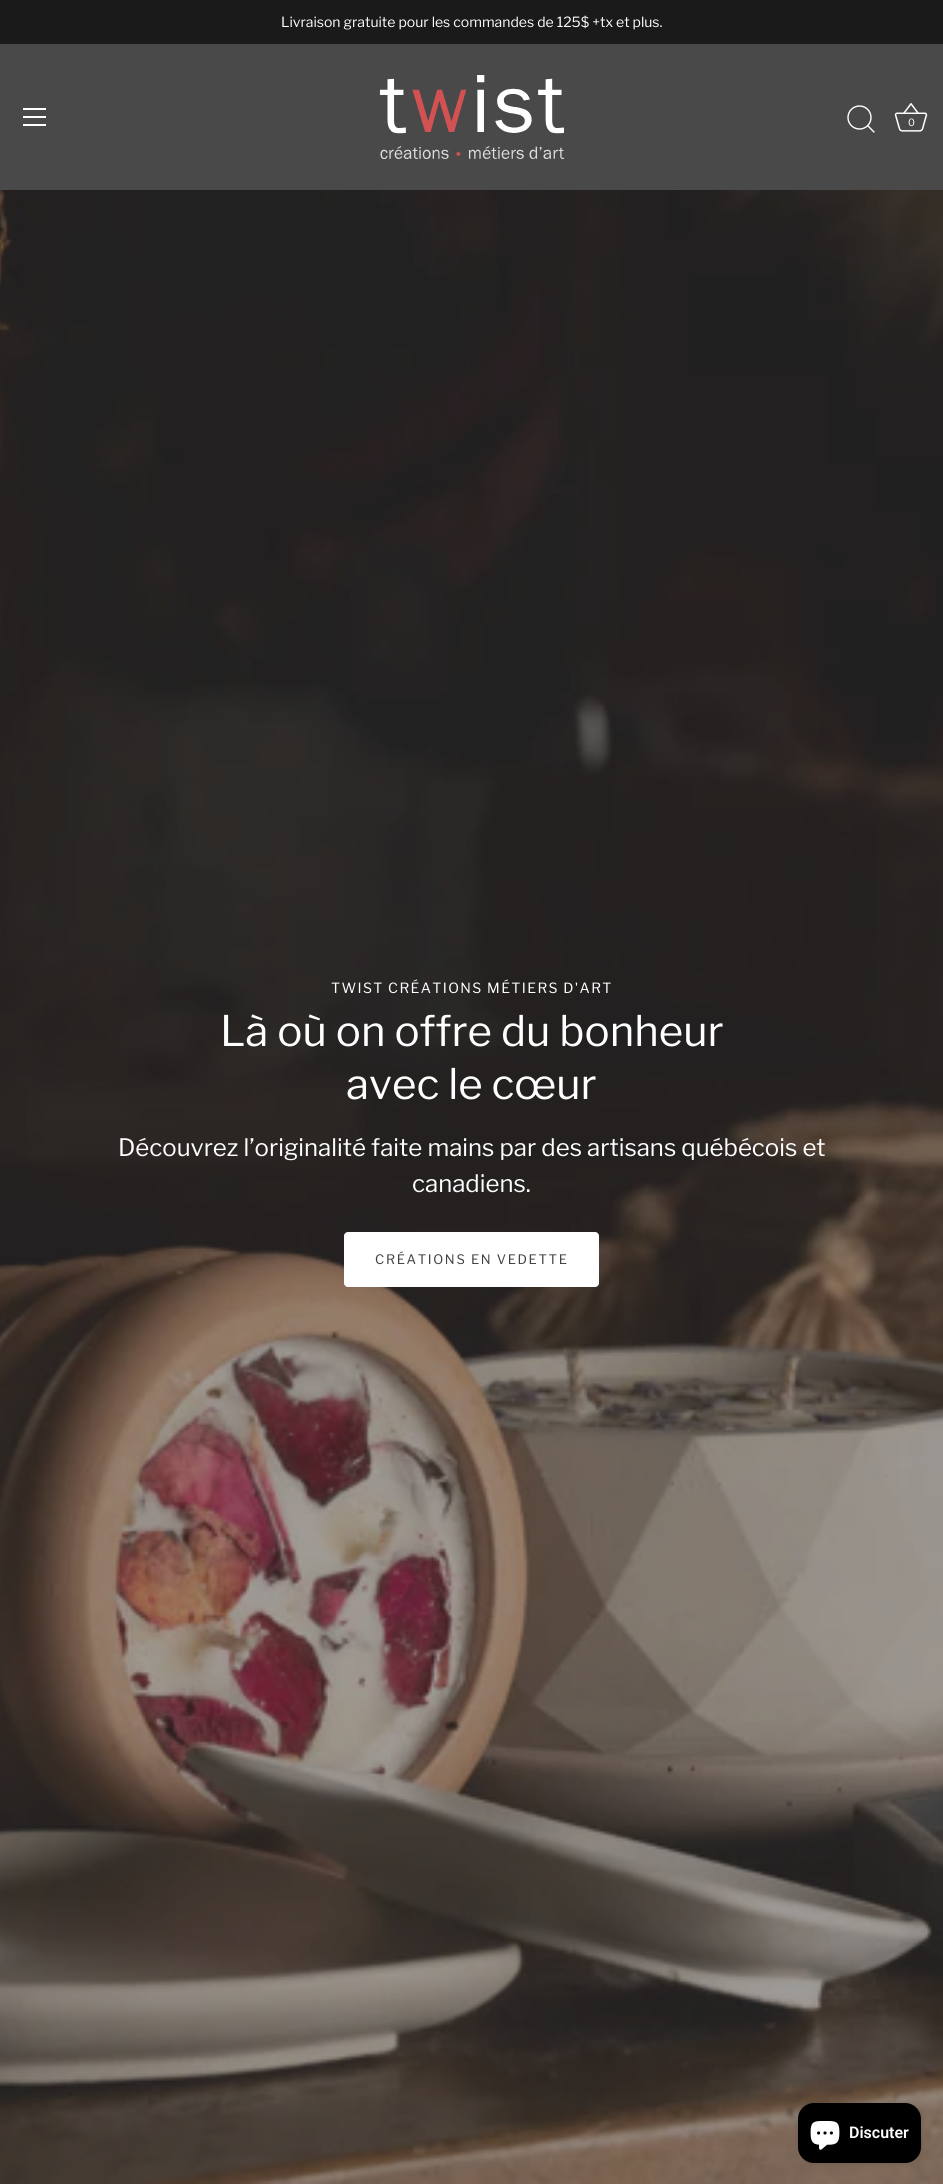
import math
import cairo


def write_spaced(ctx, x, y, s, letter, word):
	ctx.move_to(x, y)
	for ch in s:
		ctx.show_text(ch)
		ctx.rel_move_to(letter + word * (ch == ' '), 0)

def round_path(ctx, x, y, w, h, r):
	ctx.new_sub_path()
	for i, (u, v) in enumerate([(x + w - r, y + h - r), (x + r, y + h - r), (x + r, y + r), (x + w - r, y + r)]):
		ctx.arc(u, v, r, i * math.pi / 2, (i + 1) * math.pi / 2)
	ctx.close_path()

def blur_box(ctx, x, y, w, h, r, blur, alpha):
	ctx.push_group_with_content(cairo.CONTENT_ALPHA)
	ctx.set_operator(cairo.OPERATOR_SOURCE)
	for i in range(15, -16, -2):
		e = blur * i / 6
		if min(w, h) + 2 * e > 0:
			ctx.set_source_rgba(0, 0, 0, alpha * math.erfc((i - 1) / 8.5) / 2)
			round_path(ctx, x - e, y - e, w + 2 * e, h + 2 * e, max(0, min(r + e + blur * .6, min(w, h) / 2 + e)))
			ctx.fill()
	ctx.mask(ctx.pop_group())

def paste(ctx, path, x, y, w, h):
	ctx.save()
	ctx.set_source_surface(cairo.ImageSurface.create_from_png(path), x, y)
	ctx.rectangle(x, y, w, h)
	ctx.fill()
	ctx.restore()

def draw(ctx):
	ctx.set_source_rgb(1, 1, 1)
	ctx.paint()
	ctx.set_source_rgb(0.286, 0.286, 0.286)
	ctx.rectangle(0, 44, 943, 146)
	ctx.fill()
	ctx.set_source_rgb(0.102, 0.102, 0.102)
	ctx.rectangle(0, 0, 943, 44)
	ctx.fill()
	ctx.select_font_face('Libre Franklin')
	ctx.set_font_size(14)
	ctx.set_source_rgb(1, 1, 1)
	ctx.move_to(281, 27)
	ctx.show_text('Livraison gratuite pour les commandes de 125$ +tx et plus.')
	ctx.rectangle(23, 108, 23, 2)
	ctx.rectangle(23, 116, 23, 2)
	ctx.rectangle(23, 124, 23, 2)
	ctx.fill()
	paste(ctx, 'media/1.png', 379, 75, 186, 84)
	ctx.arc(859.5, 117.5, 11.5, 0, 2 * math.pi)
	ctx.set_line_width(1.4)
	ctx.stroke()
	ctx.new_path()
	ctx.move_to(874, 132)
	ctx.line_to(868, 126)
	ctx.set_line_cap(cairo.LINE_CAP_ROUND)
	ctx.set_line_join(cairo.LINE_JOIN_ROUND)
	ctx.stroke()
	paste(ctx, 'media/2.png', 894, 103, 34, 29)
	ctx.set_font_size(10)
	ctx.move_to(908, 126)
	ctx.show_text('0')
	paste(ctx, 'media/3.png', 0, 190, 943, 1994)
	ctx.set_font_size(14)
	write_spaced(ctx, 331, 993, 'TWIST CRÉATIONS MÉTIERS D\'ART', 1.4, 0)
	ctx.set_font_size(42)
	ctx.move_to(220, 1046)
	ctx.show_text('Là où on offre du bonheur')
	ctx.move_to(346, 1099)
	ctx.show_text('avec le cœur')
	ctx.set_font_size(24)
	ctx.move_to(118, 1156)
	ctx.show_text('Découvrez l’originalité faite mains par des artisans québécois et')
	ctx.move_to(412, 1192)
	ctx.show_text('canadiens.')
	round_path(ctx, 344.5, 1232.5, 254, 54, 3.5)
	ctx.fill_preserve()
	ctx.set_line_width(1)
	ctx.set_line_cap(cairo.LINE_CAP_BUTT)
	ctx.set_line_join(cairo.LINE_JOIN_MITER)
	ctx.stroke()
	ctx.set_font_size(13)
	ctx.set_source_rgb(0.259, 0.247, 0.247)
	write_spaced(ctx, 375, 1264, 'CRÉATIONS EN VEDETTE', 1.7, 0)
	ctx.set_source_rgb(0, 0, 0)
	blur_box(ctx, 798, 2103, 123, 60, 16, 2.5, 0.15)
	ctx.set_source_rgb(0, 0, 0)
	round_path(ctx, 798, 2103, 123, 60, 16)
	ctx.fill()
	paste(ctx, 'media/4.png', 810, 2121, 30, 29)
	ctx.select_font_face('Roboto SemiBold')
	ctx.set_font_size(16)
	ctx.set_source_rgb(1, 1, 1)
	ctx.move_to(849, 2138)
	ctx.show_text('Discuter')


surface = cairo.ImageSurface(cairo.FORMAT_RGB24, 943, 2184)
ctx = cairo.Context(surface)
options = cairo.FontOptions()
options.set_hint_metrics(cairo.HINT_METRICS_OFF)
options.set_hint_style(cairo.HINT_STYLE_NONE)
ctx.set_font_options(options)
ctx.set_miter_limit(4)
draw(ctx)
surface.write_to_png('image.png')
